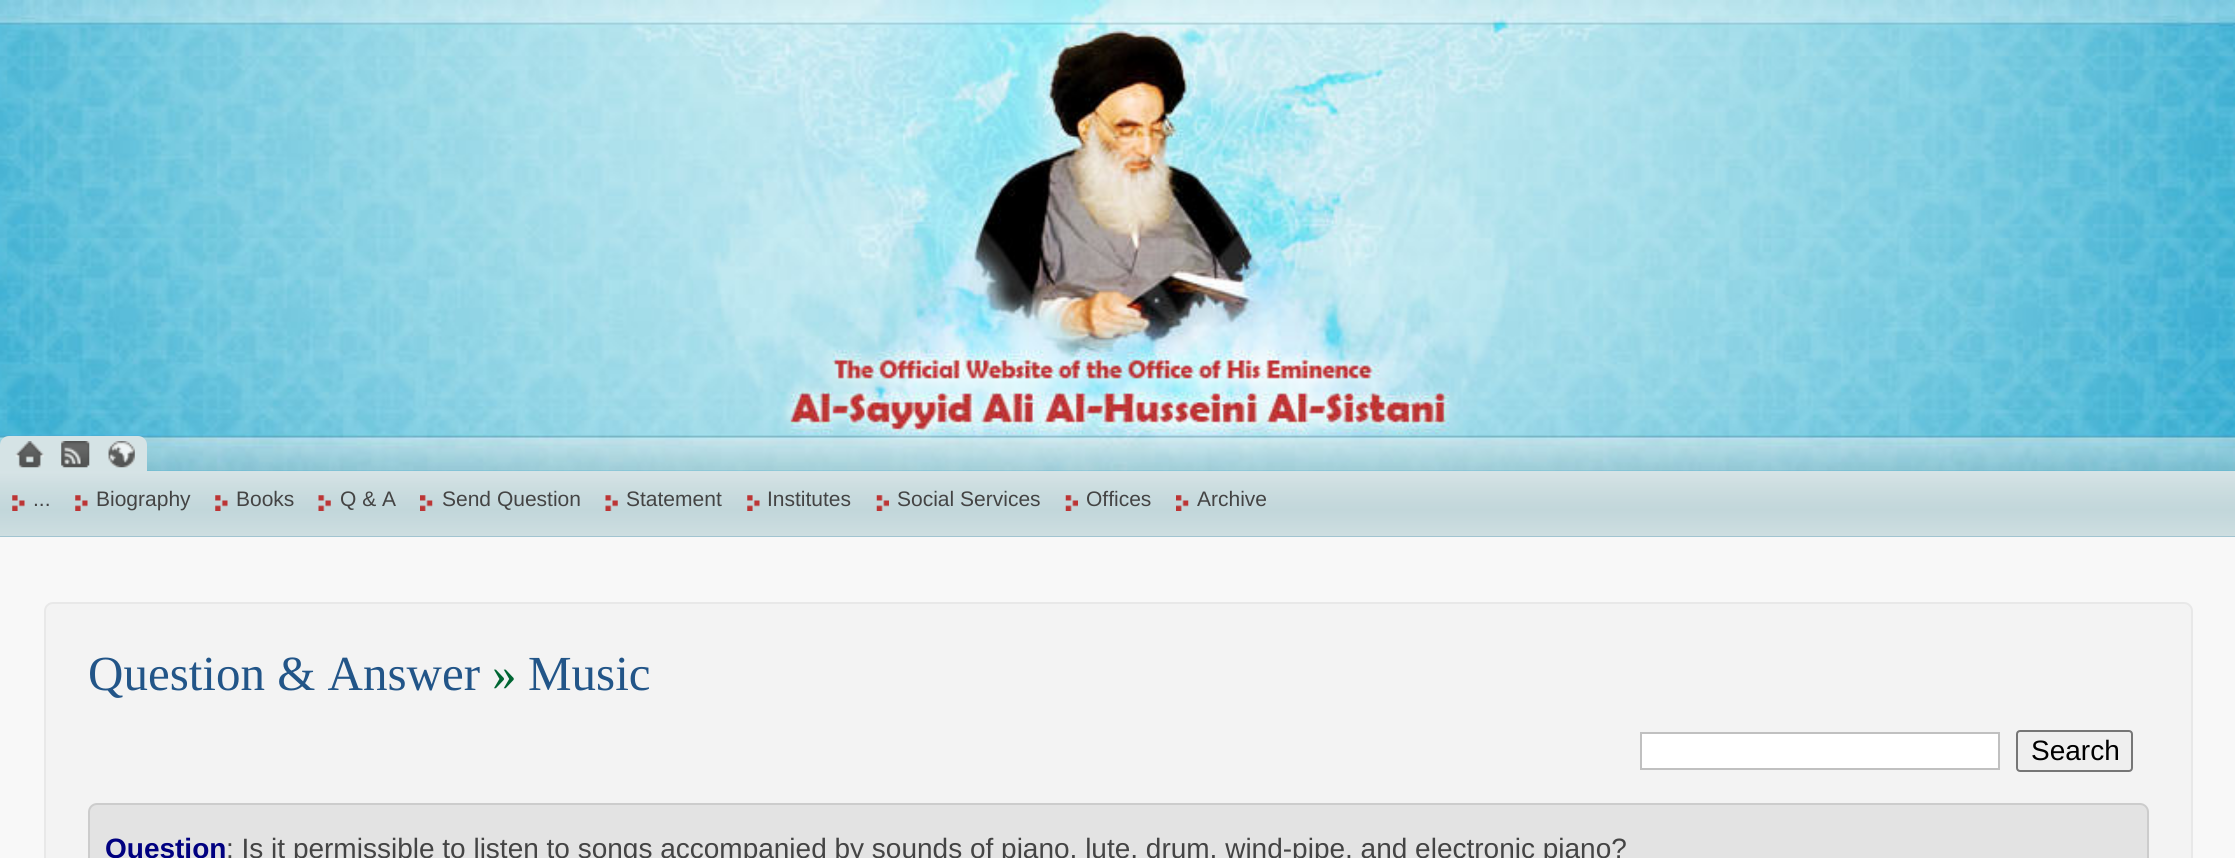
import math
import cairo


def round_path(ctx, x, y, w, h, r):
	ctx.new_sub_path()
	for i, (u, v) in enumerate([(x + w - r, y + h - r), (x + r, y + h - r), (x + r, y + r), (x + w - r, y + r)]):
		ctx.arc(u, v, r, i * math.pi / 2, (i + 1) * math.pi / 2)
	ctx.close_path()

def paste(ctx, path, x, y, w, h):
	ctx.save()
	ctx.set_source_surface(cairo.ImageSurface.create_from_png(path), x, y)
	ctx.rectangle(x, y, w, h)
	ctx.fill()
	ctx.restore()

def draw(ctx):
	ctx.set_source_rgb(1, 1, 1)
	ctx.paint()
	paste(ctx, 'media/1.png', 147, 470, 2088, 1)
	paste(ctx, 'media/6.png', 0, 470, 2235, 66)
	paste(ctx, 'media/2.png', 0, 0, 2235, 471)
	ctx.set_source_rgb(0.835, 0.89, 0.898)
	ctx.new_path()
	ctx.move_to(9, 436)
	ctx.line_to(138, 436)
	ctx.curve_to(143, 436, 147, 440, 147, 445)
	ctx.line_to(147, 471)
	ctx.line_to(0, 471)
	ctx.line_to(0, 445)
	ctx.curve_to(0, 440, 4, 436, 9, 436)
	ctx.close_path()
	ctx.fill()
	paste(ctx, 'media/3.png', 15, 441, 29, 27)
	paste(ctx, 'media/4.png', 61, 441, 29, 27)
	paste(ctx, 'media/5.png', 108, 441, 27, 27)
	ctx.set_source_rgb(0.631, 0.769, 0.816)
	ctx.rectangle(0, 536, 2235, 1)
	ctx.fill()
	paste(ctx, 'media/7.png', 12, 495, 13, 16)
	ctx.select_font_face('Liberation Sans')
	ctx.set_font_size(21)
	ctx.set_source_rgb(0.267, 0.267, 0.267)
	ctx.move_to(33, 506)
	ctx.show_text('...')
	paste(ctx, 'media/7.png', 75, 495, 13, 16)
	ctx.move_to(96, 506)
	ctx.show_text('Biography')
	paste(ctx, 'media/8.png', 215, 495, 13, 16)
	ctx.move_to(236, 506)
	ctx.show_text('Books')
	paste(ctx, 'media/9.png', 318, 495, 13, 16)
	ctx.move_to(340, 506)
	ctx.show_text('Q & A')
	paste(ctx, 'media/10.png', 420, 495, 13, 16)
	ctx.move_to(442, 506)
	ctx.show_text('Send Question')
	paste(ctx, 'media/9.png', 605, 495, 13, 16)
	ctx.move_to(626, 506)
	ctx.show_text('Statement')
	paste(ctx, 'media/7.png', 747, 495, 13, 16)
	ctx.move_to(767, 506)
	ctx.show_text('Institutes')
	paste(ctx, 'media/11.png', 876, 495, 13, 16)
	ctx.move_to(897, 506)
	ctx.show_text('Social Services')
	paste(ctx, 'media/11.png', 1065, 495, 13, 16)
	ctx.move_to(1086, 506)
	ctx.show_text('Offices')
	paste(ctx, 'media/10.png', 1176, 495, 13, 16)
	ctx.move_to(1197, 506)
	ctx.show_text('Archive')
	ctx.set_source_rgb(0.969, 0.969, 0.969)
	ctx.rectangle(0, 537, 2235, 321)
	ctx.fill()
	ctx.set_source_rgb(0.953, 0.953, 0.953)
	round_path(ctx, 45, 603, 2147, 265, 8)
	ctx.fill_preserve()
	ctx.set_source_rgb(0.91, 0.91, 0.91)
	ctx.stroke()
	ctx.select_font_face('Liberation Serif')
	ctx.set_font_size(49)
	ctx.set_source_rgb(0.133, 0.333, 0.533)
	ctx.move_to(88, 690)
	ctx.show_text('Question & Answer')
	ctx.set_source_rgb(0, 0.4, 0.2)
	ctx.move_to(492, 690)
	ctx.show_text('»')
	ctx.set_source_rgb(0.133, 0.333, 0.533)
	ctx.move_to(528, 690)
	ctx.show_text('Music')
	ctx.set_source_rgb(1, 1, 1)
	ctx.rectangle(1641, 733, 358, 36)
	ctx.fill_preserve()
	ctx.set_source_rgb(0.753, 0.753, 0.753)
	ctx.stroke()
	ctx.set_source_rgb(0.937, 0.937, 0.937)
	round_path(ctx, 2017, 731, 115, 40, 3)
	ctx.fill_preserve()
	ctx.set_source_rgb(0.463, 0.463, 0.463)
	ctx.stroke()
	ctx.select_font_face('Liberation Sans')
	ctx.set_font_size(28)
	ctx.set_source_rgb(0, 0, 0)
	ctx.move_to(2031, 760)
	ctx.show_text('Search')
	ctx.set_source_rgb(0.89, 0.89, 0.89)
	round_path(ctx, 89, 804, 2059, 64, 8)
	ctx.fill_preserve()
	ctx.set_source_rgb(0.8, 0.8, 0.8)
	ctx.stroke()
	ctx.select_font_face('Liberation Sans', cairo.FONT_SLANT_NORMAL, cairo.FONT_WEIGHT_BOLD)
	ctx.set_source_rgb(0, 0, 0.502)
	ctx.move_to(105, 858)
	ctx.show_text('Question')
	ctx.select_font_face('Liberation Sans')
	ctx.set_source_rgb(0.267, 0.267, 0.267)
	ctx.move_to(226, 858)
	ctx.show_text(': Is it permissible to listen to songs accompanied by sounds of piano, lute, drum, wind-pipe, and electronic piano?')


surface = cairo.ImageSurface(cairo.FORMAT_RGB24, 2235, 858)
ctx = cairo.Context(surface)
options = cairo.FontOptions()
options.set_hint_metrics(cairo.HINT_METRICS_OFF)
options.set_hint_style(cairo.HINT_STYLE_NONE)
ctx.set_font_options(options)
ctx.set_miter_limit(4)
draw(ctx)
surface.write_to_png('image.png')
